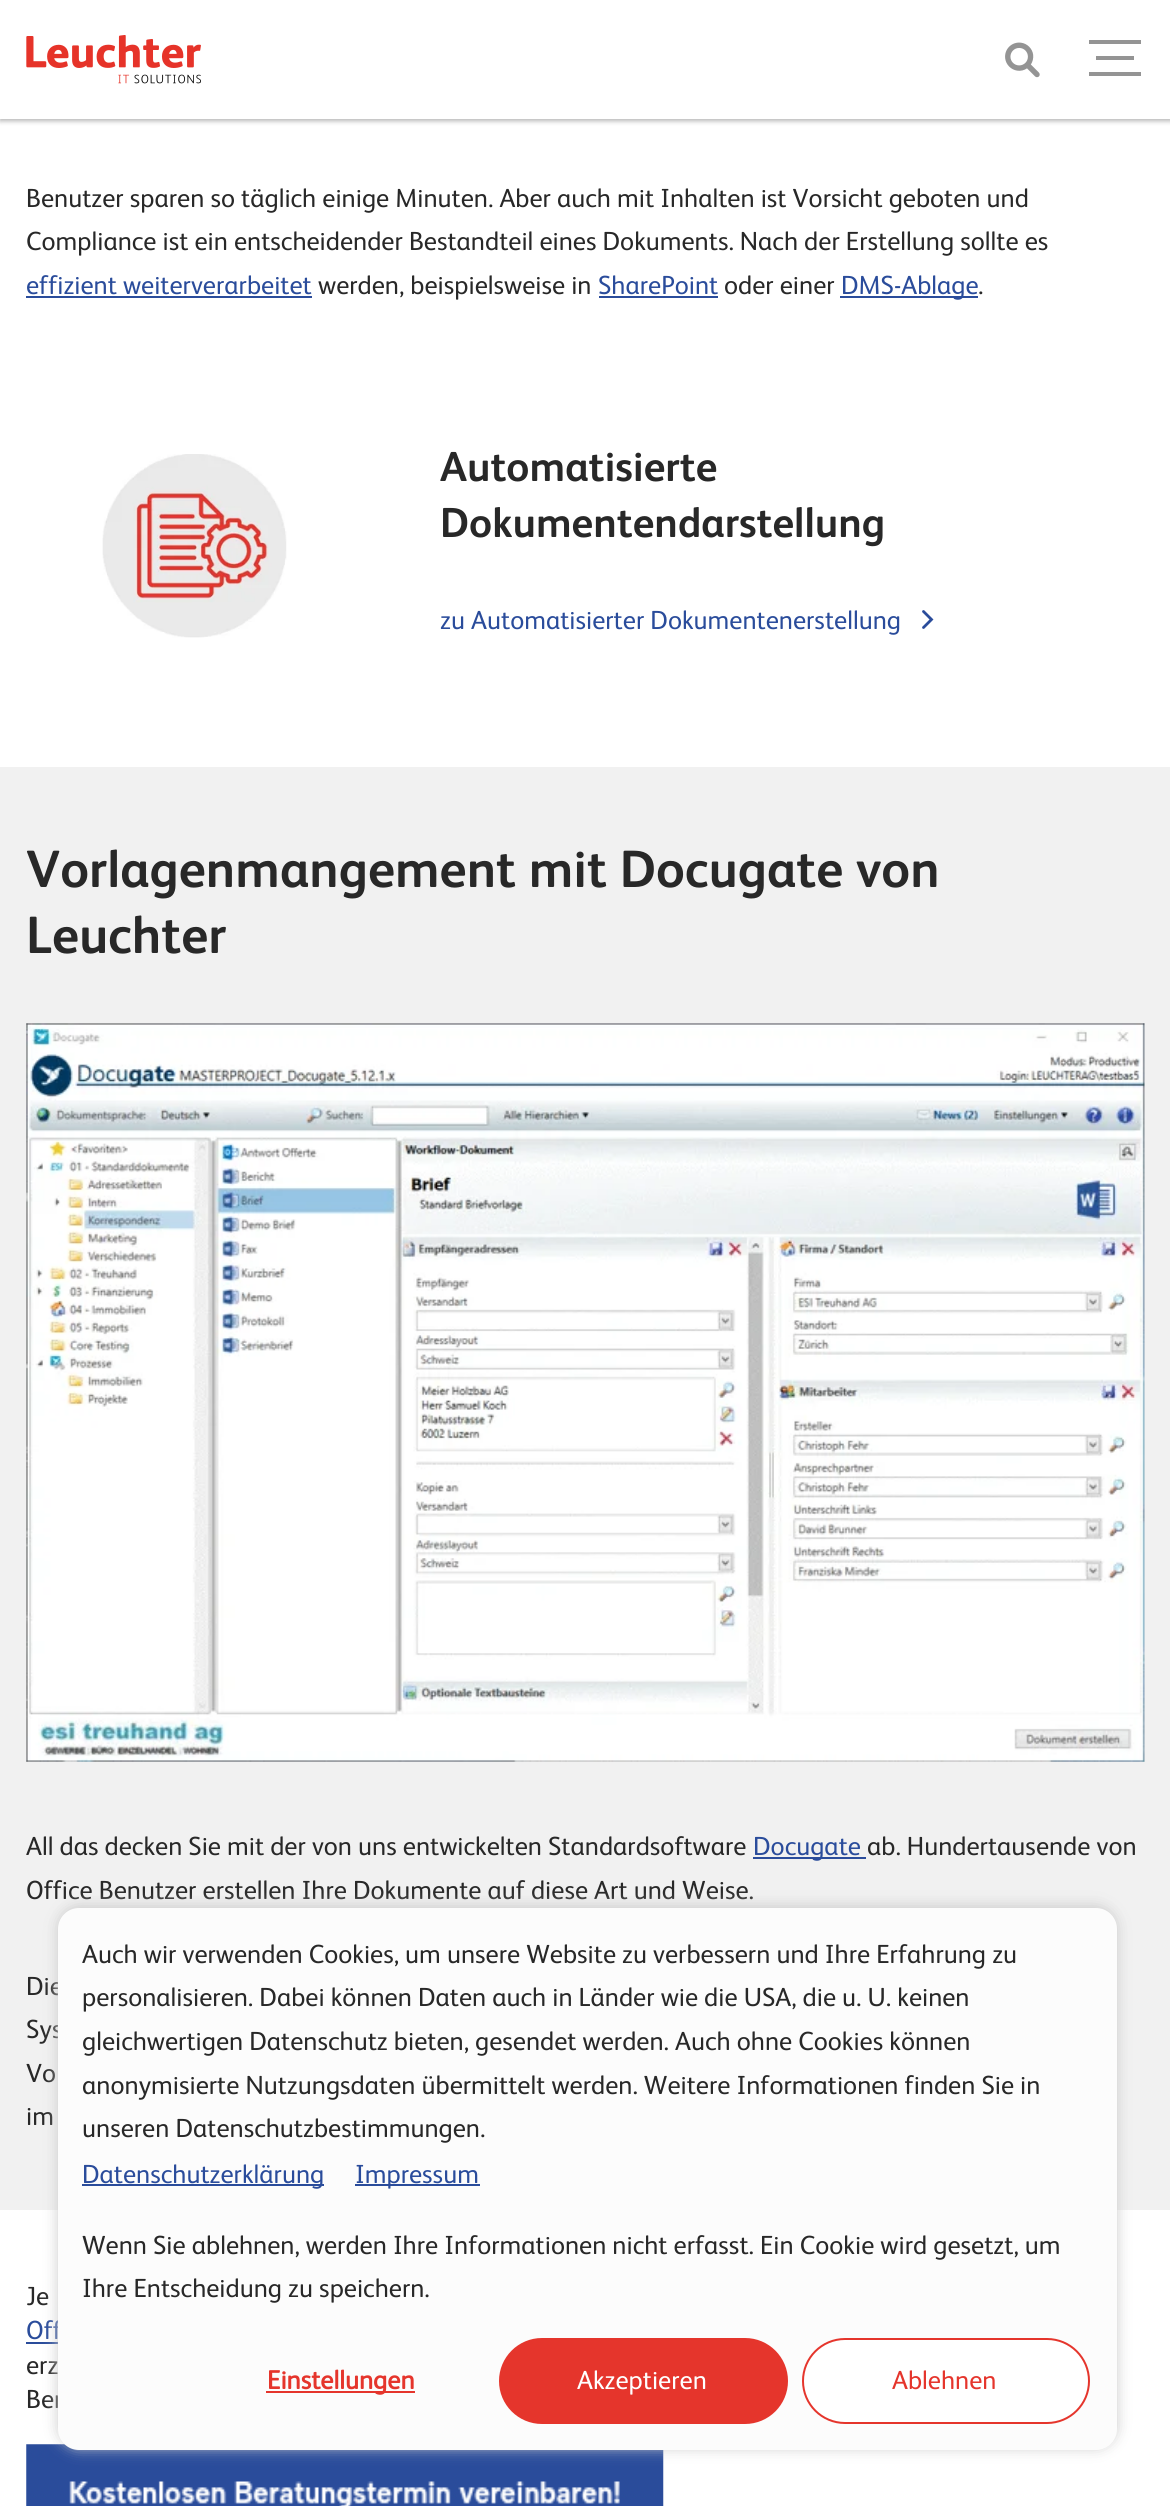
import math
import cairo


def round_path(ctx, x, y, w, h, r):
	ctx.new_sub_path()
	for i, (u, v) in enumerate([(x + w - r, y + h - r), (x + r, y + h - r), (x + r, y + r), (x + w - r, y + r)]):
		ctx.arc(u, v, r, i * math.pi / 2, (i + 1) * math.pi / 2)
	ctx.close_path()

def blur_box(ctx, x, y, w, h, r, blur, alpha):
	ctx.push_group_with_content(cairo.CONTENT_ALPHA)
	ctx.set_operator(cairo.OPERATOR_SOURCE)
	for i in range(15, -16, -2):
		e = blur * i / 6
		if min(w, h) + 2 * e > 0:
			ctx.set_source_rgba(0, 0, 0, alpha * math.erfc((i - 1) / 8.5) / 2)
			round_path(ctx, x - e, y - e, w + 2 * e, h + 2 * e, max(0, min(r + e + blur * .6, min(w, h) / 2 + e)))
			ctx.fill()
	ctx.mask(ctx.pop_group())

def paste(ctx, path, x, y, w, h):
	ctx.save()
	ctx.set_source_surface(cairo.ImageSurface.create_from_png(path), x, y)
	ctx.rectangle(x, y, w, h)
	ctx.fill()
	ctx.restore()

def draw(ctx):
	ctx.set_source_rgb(1, 1, 1)
	ctx.paint()
	ctx.set_source_rgb(0, 0, 0)
	blur_box(ctx, 0, 2, 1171, 119, 0, 2.5, 0.3)
	ctx.set_source_rgb(1, 1, 1)
	ctx.rectangle(0, 0, 1170, 119)
	ctx.fill()
	paste(ctx, 'media/1.png', 26, 35, 175, 49)
	paste(ctx, 'media/2.png', 1005, 42, 35, 36)
	ctx.set_source_rgb(0.58, 0.58, 0.58)
	ctx.rectangle(1096, 56, 38, 4)
	ctx.rectangle(1089, 40, 52, 4)
	ctx.rectangle(1089, 72, 52, 4)
	ctx.fill()
	ctx.select_font_face('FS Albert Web')
	ctx.set_font_size(26.25)
	ctx.set_source_rgb(0.157, 0.157, 0.157)
	ctx.move_to(26, 207)
	ctx.show_text('Benutzer sparen so täglich einige Minuten. Aber auch mit Inhalten ist Vorsicht geboten und')
	ctx.move_to(26, 250)
	ctx.show_text('Compliance ist ein entscheidender Bestandteil eines Dokuments. Nach der Erstellung sollte es')
	ctx.set_source_rgb(0.165, 0.298, 0.608)
	ctx.move_to(26, 294)
	ctx.show_text('effizient weiterverarbeitet')
	ctx.rectangle(26, 296, 286, 2)
	ctx.fill()
	ctx.set_source_rgb(0.157, 0.157, 0.157)
	ctx.move_to(318, 294)
	ctx.show_text('werden, beispielsweise in')
	ctx.set_source_rgb(0.165, 0.298, 0.608)
	ctx.move_to(598, 294)
	ctx.show_text('SharePoint')
	ctx.rectangle(599, 296, 119, 2)
	ctx.fill()
	ctx.set_source_rgb(0.157, 0.157, 0.157)
	ctx.move_to(724, 294)
	ctx.show_text('oder einer')
	ctx.set_source_rgb(0.165, 0.298, 0.608)
	ctx.rectangle(840, 296, 138, 2)
	ctx.fill()
	ctx.move_to(841, 294)
	ctx.show_text('DMS-Ablage')
	ctx.set_source_rgb(0.157, 0.157, 0.157)
	ctx.move_to(978, 294)
	ctx.show_text('.')
	paste(ctx, 'media/3.png', 102, 454, 185, 184)
	ctx.select_font_face('FS Albert Web', cairo.FONT_SLANT_NORMAL, cairo.FONT_WEIGHT_BOLD)
	ctx.set_font_size(42)
	ctx.move_to(440, 481)
	ctx.show_text('Automatisierte')
	ctx.move_to(440, 537)
	ctx.show_text('Dokumentendarstellung')
	ctx.select_font_face('FS Albert Web')
	ctx.set_font_size(26.25)
	ctx.set_source_rgb(0.165, 0.298, 0.608)
	ctx.move_to(440, 629)
	ctx.show_text('zu Automatisierter Dokumentenerstellung')
	ctx.new_path()
	ctx.move_to(923.5, 611.5)
	ctx.line_to(931.5, 619.5)
	ctx.line_to(923.5, 627.5)
	ctx.set_line_width(2.8)
	ctx.set_line_cap(cairo.LINE_CAP_ROUND)
	ctx.stroke()
	ctx.set_source_rgb(0.945, 0.945, 0.945)
	ctx.rectangle(0, 767, 1170, 1443)
	ctx.fill()
	ctx.select_font_face('FS Albert Web', cairo.FONT_SLANT_NORMAL, cairo.FONT_WEIGHT_BOLD)
	ctx.set_font_size(52.5)
	ctx.set_source_rgb(0.157, 0.157, 0.157)
	ctx.move_to(26, 887)
	ctx.show_text('Vorlagenmangement mit Docugate von')
	ctx.move_to(26, 953)
	ctx.show_text('Leuchter')
	paste(ctx, 'media/4.png', 26, 1023, 1119, 739)
	ctx.select_font_face('FS Albert Web')
	ctx.set_font_size(26.25)
	ctx.move_to(26, 1855)
	ctx.show_text('All das decken Sie mit der von uns entwickelten Standardsoftware')
	ctx.set_source_rgb(0.165, 0.298, 0.608)
	ctx.rectangle(753, 1857, 113, 2)
	ctx.fill()
	ctx.move_to(753, 1855)
	ctx.show_text('Docugate')
	ctx.set_source_rgb(0.157, 0.157, 0.157)
	for x, y, s in [
		(867, 1855, 'ab. Hundertausende von'),
		(26, 1899, 'Office Benutzer erstellen Ihre Dokumente auf diese Art und Weise.'),
		(26, 1995, 'Die'),
		(26, 2038, 'Sys'),
		(26, 2082, 'Vo'),
		(26, 2125, 'im'),
		(26, 2305, 'Je'),
	]:
		ctx.move_to(x, y)
		ctx.show_text(s)
	ctx.set_source_rgb(0.165, 0.298, 0.608)
	ctx.move_to(26, 2339)
	ctx.show_text('Off')
	ctx.rectangle(26, 2342, 32, 2)
	ctx.fill()
	ctx.set_source_rgb(0.157, 0.157, 0.157)
	ctx.move_to(26, 2374)
	ctx.show_text('erz')
	ctx.move_to(26, 2408)
	ctx.show_text('Ber')
	paste(ctx, 'media/5.png', 26, 2444, 638, 62)
	ctx.set_source_rgb(0.8, 0.8, 0.8)
	blur_box(ctx, 58, 1906, 1059, 542, 21, 7, 1)
	ctx.set_source_rgb(0.988, 0.988, 0.988)
	round_path(ctx, 58, 1908, 1059, 542, 21)
	ctx.fill()
	ctx.set_source_rgb(0.157, 0.157, 0.157)
	for x, y, s in [
		(82, 1963, 'Auch wir verwenden Cookies, um unsere Website zu verbessern und Ihre Erfahrung zu'),
		(82, 2006, 'personalisieren. Dabei können Daten auch in Länder wie die USA, die u. U. keinen'),
		(82, 2050, 'gleichwertigen Datenschutz bieten, gesendet werden. Auch ohne Cookies können'),
		(82, 2094, 'anonymisierte Nutzungsdaten übermittelt werden. Weitere Informationen finden Sie in'),
		(82, 2137, 'unseren Datenschutzbestimmungen.'),
	]:
		ctx.move_to(x, y)
		ctx.show_text(s)
	ctx.set_source_rgb(0.165, 0.298, 0.608)
	ctx.rectangle(82, 2184, 242, 2)
	ctx.fill()
	ctx.move_to(82, 2183)
	ctx.show_text('Datenschutzerklärung')
	ctx.rectangle(355, 2184, 125, 2)
	ctx.fill()
	ctx.move_to(355, 2183)
	ctx.show_text('Impressum')
	ctx.set_source_rgb(0.157, 0.157, 0.157)
	ctx.move_to(82, 2254)
	ctx.show_text('Wenn Sie ablehnen, werden Ihre Informationen nicht erfasst. Ein Cookie wird gesetzt, um')
	ctx.move_to(82, 2297)
	ctx.show_text('Ihre Entscheidung zu speichern.')
	ctx.set_source_rgb(0.898, 0.208, 0.173)
	ctx.rectangle(266, 2391, 149, 2)
	ctx.fill()
	ctx.select_font_face('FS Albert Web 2', cairo.FONT_SLANT_NORMAL, cairo.FONT_WEIGHT_BOLD)
	ctx.move_to(267, 2389)
	ctx.show_text('Einstellungen')
	round_path(ctx, 500, 2339, 287, 84, 42)
	ctx.fill_preserve()
	ctx.set_line_width(2)
	ctx.set_line_cap(cairo.LINE_CAP_BUTT)
	ctx.stroke()
	ctx.select_font_face('FS Albert Web')
	ctx.set_source_rgb(1, 1, 1)
	ctx.move_to(577, 2389)
	ctx.show_text('Akzeptieren')
	round_path(ctx, 803, 2339, 286, 84, 42)
	ctx.fill_preserve()
	ctx.set_source_rgb(0.898, 0.208, 0.173)
	ctx.stroke()
	ctx.move_to(892, 2389)
	ctx.show_text('Ablehnen')


surface = cairo.ImageSurface(cairo.FORMAT_RGB24, 1170, 2506)
ctx = cairo.Context(surface)
options = cairo.FontOptions()
options.set_hint_metrics(cairo.HINT_METRICS_OFF)
options.set_hint_style(cairo.HINT_STYLE_NONE)
ctx.set_font_options(options)
ctx.set_miter_limit(4)
draw(ctx)
surface.write_to_png('image.png')
